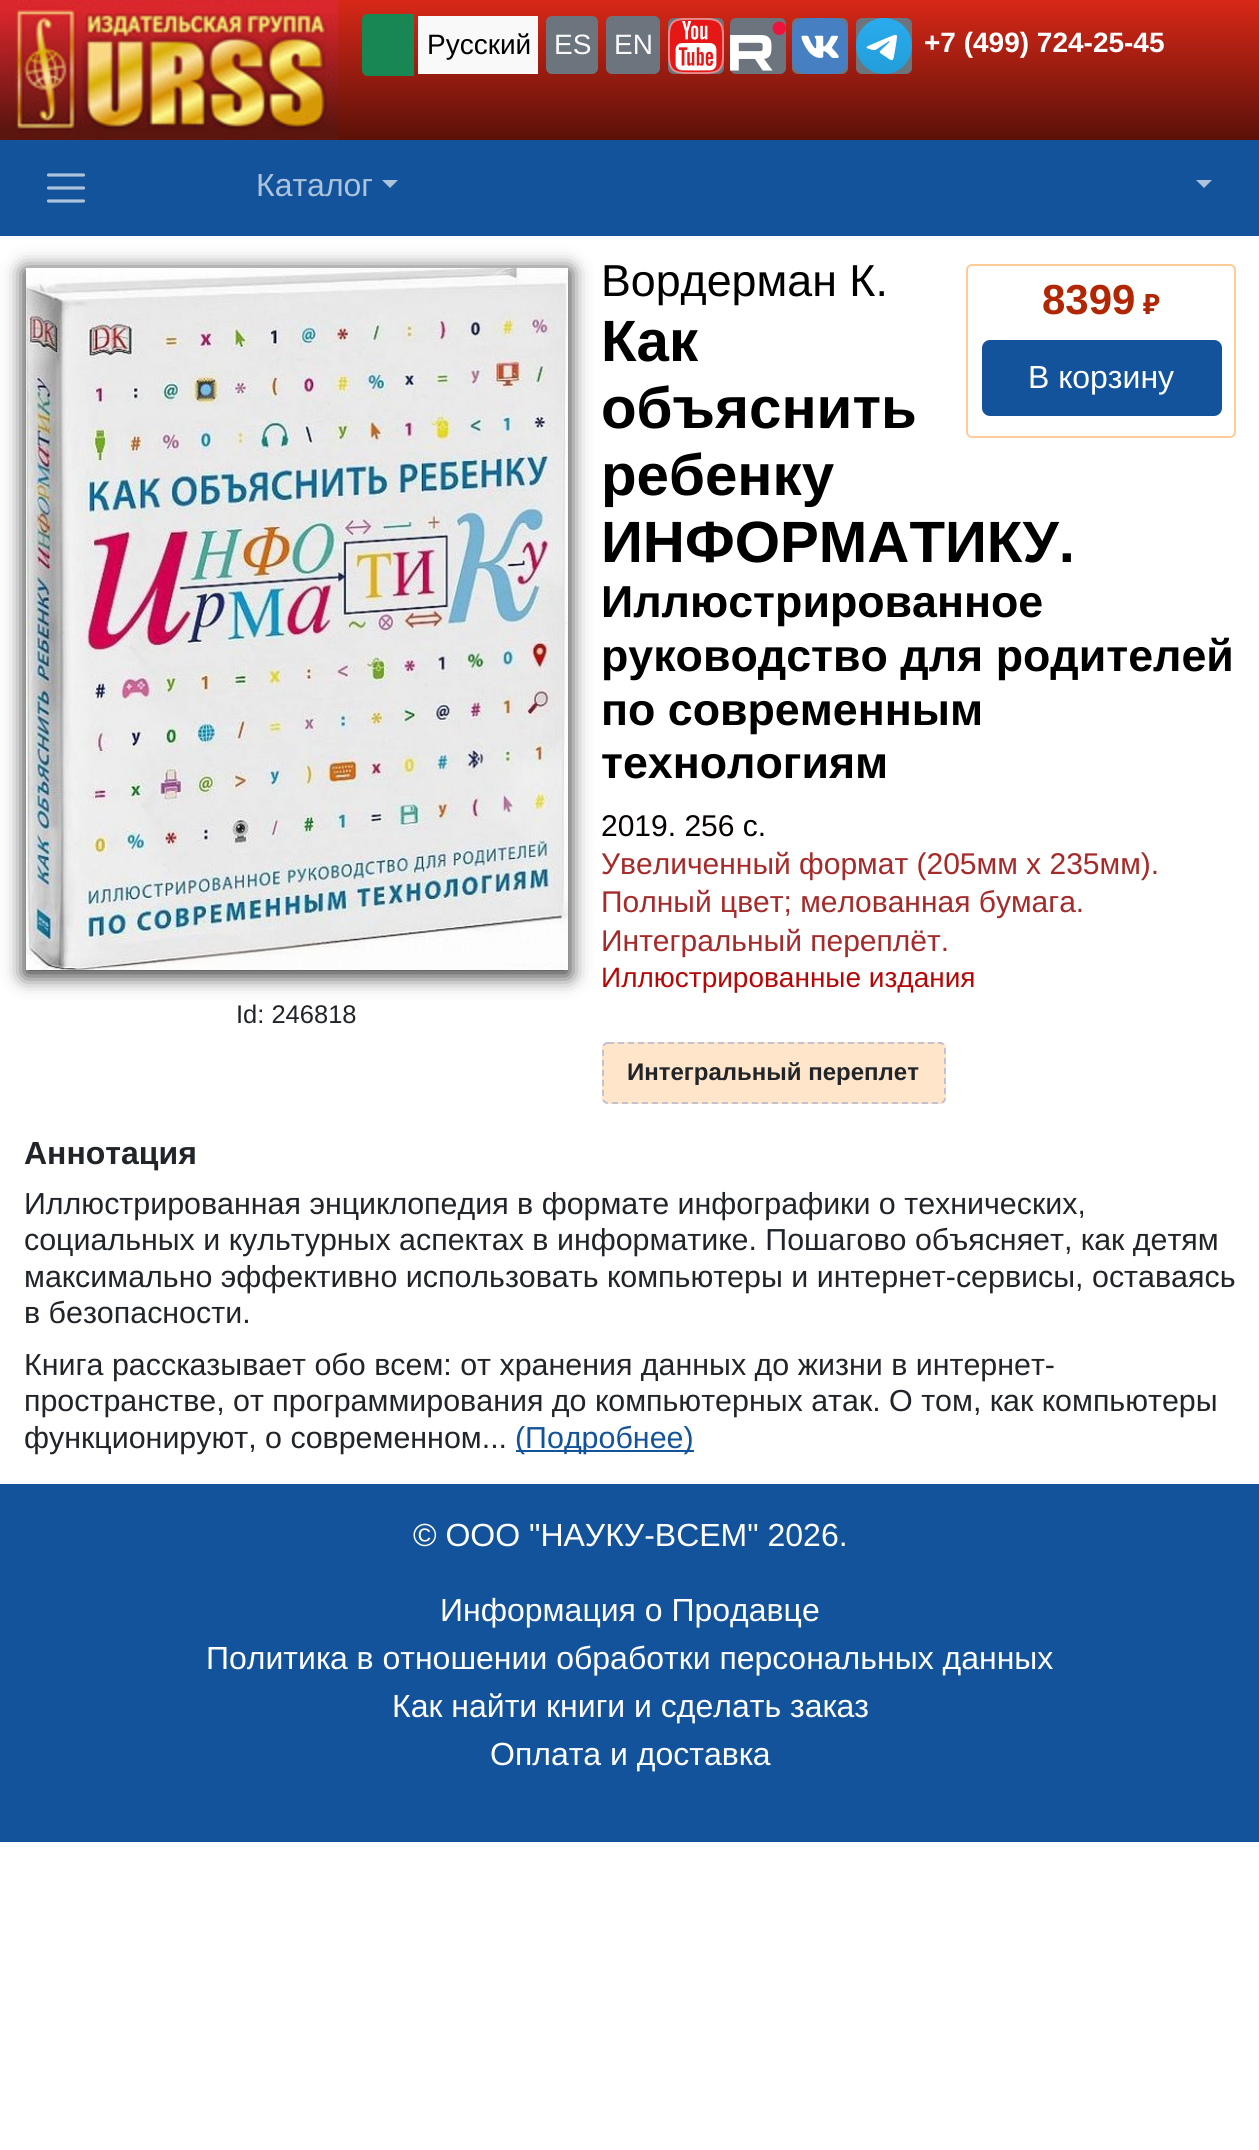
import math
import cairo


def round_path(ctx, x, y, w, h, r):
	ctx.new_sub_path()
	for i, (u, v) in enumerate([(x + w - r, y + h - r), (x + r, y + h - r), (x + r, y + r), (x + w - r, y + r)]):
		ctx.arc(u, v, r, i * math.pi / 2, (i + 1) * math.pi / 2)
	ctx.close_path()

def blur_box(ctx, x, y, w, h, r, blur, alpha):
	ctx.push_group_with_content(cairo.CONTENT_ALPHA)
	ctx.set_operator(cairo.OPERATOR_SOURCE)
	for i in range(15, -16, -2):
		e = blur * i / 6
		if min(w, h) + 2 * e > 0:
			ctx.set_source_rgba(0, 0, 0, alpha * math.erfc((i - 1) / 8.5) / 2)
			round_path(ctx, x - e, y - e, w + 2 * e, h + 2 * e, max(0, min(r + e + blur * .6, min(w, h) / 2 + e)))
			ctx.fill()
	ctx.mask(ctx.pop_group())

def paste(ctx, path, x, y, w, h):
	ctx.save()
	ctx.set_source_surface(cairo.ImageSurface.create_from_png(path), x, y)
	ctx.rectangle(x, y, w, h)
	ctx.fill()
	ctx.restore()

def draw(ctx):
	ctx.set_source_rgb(1, 1, 1)
	ctx.paint()
	paste(ctx, 'media/1.png', 0, 0, 338, 140)
	gradient = cairo.LinearGradient(799, 0, 799, 140)
	gradient.add_color_stop_rgba(0, 0.847, 0.157, 0.094, 1)
	gradient.add_color_stop_rgba(1, 0.357, 0.067, 0.031, 1)
	ctx.set_source(gradient)
	ctx.rectangle(338, 0, 921, 140)
	ctx.fill()
	ctx.set_source_rgb(0.098, 0.529, 0.329)
	ctx.new_path()
	ctx.move_to(368, 15)
	ctx.line_to(413, 15)
	ctx.line_to(413, 75)
	ctx.line_to(368, 75)
	ctx.curve_to(365, 75, 363, 73, 363, 70)
	ctx.line_to(363, 20)
	ctx.curve_to(363, 17, 365, 15, 368, 15)
	ctx.close_path()
	ctx.fill_preserve()
	ctx.stroke()
	ctx.set_source_rgb(0.973, 0.976, 0.98)
	ctx.rectangle(418, 16, 120, 58)
	ctx.fill()
	ctx.select_font_face('Liberation Sans')
	ctx.set_font_size(28)
	ctx.set_source_rgb(0, 0, 0)
	ctx.move_to(427, 54)
	ctx.show_text('Русский')
	ctx.set_source_rgb(0.424, 0.459, 0.49)
	round_path(ctx, 546, 16, 52, 58, 6)
	ctx.fill()
	ctx.set_source_rgb(0.973, 0.976, 0.98)
	ctx.move_to(554, 54)
	ctx.show_text('ES')
	ctx.set_source_rgb(0.424, 0.459, 0.49)
	round_path(ctx, 606, 16, 54, 58, 6)
	ctx.fill()
	ctx.set_source_rgb(0.973, 0.976, 0.98)
	ctx.move_to(614, 54)
	ctx.show_text('EN')
	ctx.set_source_rgb(0.424, 0.459, 0.49)
	round_path(ctx, 668, 18, 56, 56, 6)
	ctx.fill()
	paste(ctx, 'media/2.png', 668, 18, 56, 56)
	round_path(ctx, 730, 18, 56, 56, 6)
	ctx.fill()
	paste(ctx, 'media/3.png', 730, 21, 56, 50)
	round_path(ctx, 792, 18, 56, 56, 6)
	ctx.fill()
	paste(ctx, 'media/4.png', 792, 18, 56, 56)
	round_path(ctx, 856, 18, 56, 56, 6)
	ctx.fill()
	paste(ctx, 'media/5.png', 856, 18, 56, 56)
	ctx.select_font_face('Liberation Sans', cairo.FONT_SLANT_NORMAL, cairo.FONT_WEIGHT_BOLD)
	ctx.set_source_rgb(1, 1, 1)
	ctx.move_to(924, 52)
	ctx.show_text('+7 (499) 724-25-45')
	ctx.set_source_rgb(0.075, 0.325, 0.608)
	ctx.rectangle(0, 140, 1259, 96)
	ctx.fill()
	ctx.new_path()
	ctx.move_to(48.5, 175)
	ctx.line_to(83.5, 175)
	ctx.move_to(48.5, 188)
	ctx.line_to(83.5, 188)
	ctx.move_to(48.5, 201)
	ctx.line_to(83.5, 201)
	ctx.set_source_rgb(0.675, 0.765, 0.863)
	ctx.set_line_width(3.2)
	ctx.set_line_cap(cairo.LINE_CAP_ROUND)
	ctx.stroke()
	ctx.select_font_face('Liberation Sans')
	ctx.set_font_size(32)
	ctx.move_to(256, 196)
	ctx.show_text('Каталог')
	ctx.new_path()
	ctx.move_to(382, 180)
	ctx.line_to(398, 180)
	ctx.line_to(390, 188)
	ctx.close_path()
	ctx.fill()
	ctx.new_path()
	ctx.move_to(1196, 180)
	ctx.line_to(1212, 180)
	ctx.line_to(1204, 188)
	ctx.close_path()
	ctx.fill()
	ctx.set_font_size(44.75)
	ctx.set_source_rgb(0, 0, 0)
	ctx.move_to(601, 296)
	ctx.show_text('Вордерман К.')
	ctx.select_font_face('Liberation Sans', cairo.FONT_SLANT_NORMAL, cairo.FONT_WEIGHT_BOLD)
	ctx.set_font_size(58.25)
	for x, y, s in [
		(601, 361, 'Как'),
		(601, 428, 'объяснить'),
		(601, 495, 'ребенку'),
		(601, 562, 'ИНФОРМАТИКУ.'),
	]:
		ctx.move_to(x, y)
		ctx.show_text(s)
	ctx.set_font_size(44.75)
	for x, y, s in [
		(601, 617, 'Иллюстрированное'),
		(601, 671, 'руководство для родителей'),
		(601, 725, 'по современным'),
		(601, 778, 'технологиям'),
	]:
		ctx.move_to(x, y)
		ctx.show_text(s)
	round_path(ctx, 967, 265, 268, 172, 5)
	ctx.set_source_rgb(1, 0.8, 0.6)
	ctx.set_line_width(2)
	ctx.set_line_cap(cairo.LINE_CAP_BUTT)
	ctx.stroke()
	ctx.set_font_size(42)
	ctx.set_source_rgb(0.694, 0.153, 0.016)
	ctx.move_to(1042, 314)
	ctx.show_text('8399')
	ctx.select_font_face('Noto Sans', cairo.FONT_SLANT_NORMAL, cairo.FONT_WEIGHT_BOLD)
	ctx.set_font_size(28)
	ctx.move_to(1143, 314)
	ctx.show_text('₽')
	ctx.set_source_rgb(0.075, 0.325, 0.608)
	round_path(ctx, 983, 341, 238, 74, 7)
	ctx.fill_preserve()
	ctx.stroke()
	ctx.select_font_face('Liberation Sans')
	ctx.set_font_size(32)
	ctx.set_source_rgb(1, 1, 1)
	ctx.move_to(1028, 388)
	ctx.show_text('В корзину')
	ctx.set_font_size(30)
	ctx.set_source_rgb(0.031, 0, 0)
	ctx.move_to(601, 836)
	ctx.show_text('2019. 256 с.')
	ctx.set_source_rgb(0.647, 0.165, 0.165)
	for x, y, s in [
		(601, 874, 'Увеличенный формат (205мм x 235мм).'),
		(601, 912, 'Полный цвет; мелованная бумага.'),
		(601, 951, 'Интегральный переплёт.'),
	]:
		ctx.move_to(x, y)
		ctx.show_text(s)
	ctx.set_font_size(28)
	ctx.set_source_rgb(0.71, 0.031, 0.031)
	ctx.move_to(601, 987)
	ctx.show_text('Иллюстрированные издания')
	ctx.set_source_rgb(0, 0, 0)
	blur_box(ctx, 24, 270, 546, 706, 0, 10, 0.8)
	paste(ctx, 'media/6.png', 26, 268, 542, 702)
	ctx.set_font_size(25.5)
	ctx.set_source_rgb(0.129, 0.145, 0.161)
	ctx.move_to(236, 1023)
	ctx.show_text('Id: 246818')
	ctx.set_source_rgb(1, 0.898, 0.792)
	round_path(ctx, 602, 1042, 344, 62, 6)
	ctx.fill()
	ctx.new_path()
	ctx.move_to(608, 1043)
	ctx.line_to(940, 1043)
	ctx.curve_to(943, 1043, 945, 1045, 945, 1048)
	ctx.line_to(945, 1098)
	ctx.curve_to(945, 1101, 943, 1103, 940, 1103)
	ctx.line_to(608, 1103)
	ctx.curve_to(605, 1103, 603, 1101, 603, 1098)
	ctx.line_to(603, 1048)
	ctx.curve_to(603, 1045, 605, 1043, 608, 1043)
	ctx.close_path()
	ctx.set_source_rgb(0.769, 0.757, 0.812)
	ctx.set_dash([6, 4])
	ctx.stroke()
	ctx.select_font_face('Liberation Sans', cairo.FONT_SLANT_NORMAL, cairo.FONT_WEIGHT_BOLD)
	ctx.set_font_size(24)
	ctx.set_source_rgb(0.129, 0.145, 0.161)
	ctx.move_to(627, 1080)
	ctx.show_text('Интегральный переплет')
	ctx.set_font_size(32)
	ctx.move_to(24, 1164)
	ctx.show_text('Аннотация')
	ctx.select_font_face('Liberation Sans')
	ctx.set_font_size(30.4)
	for x, y, s in [
		(24, 1214, 'Иллюстрированная энциклопедия в формате инфографики о технических,'),
		(24, 1250, 'социальных и культурных аспектах в информатике. Пошагово объясняет, как детям'),
		(24, 1287, 'максимально эффективно использовать компьютеры и интернет-сервисы, оставаясь'),
		(24, 1323, 'в безопасности.'),
		(24, 1375, 'Книга рассказывает обо всем: от хранения данных до жизни в интернет-'),
		(24, 1411, 'пространстве, от программирования до компьютерных атак. О том, как компьютеры'),
		(24, 1448, 'функционируют, о современном...'),
	]:
		ctx.move_to(x, y)
		ctx.show_text(s)
	ctx.set_source_rgb(0.075, 0.325, 0.608)
	ctx.rectangle(516, 1450, 178, 2)
	ctx.fill()
	ctx.move_to(515, 1448)
	ctx.show_text('(Подробнее)')
	ctx.rectangle(0, 1484, 1259, 358)
	ctx.fill()
	ctx.set_font_size(32)
	ctx.set_source_rgb(1, 1, 1)
	for x, y, s in [
		(413, 1546, '© ООО "НАУКУ-ВСЕМ" 2026.'),
		(440, 1621, 'Информация о Продавце'),
		(206, 1669, 'Политика в отношении обработки персональных данных'),
		(392, 1717, 'Как найти книги и сделать заказ'),
		(490, 1765, 'Оплата и доставка'),
	]:
		ctx.move_to(x, y)
		ctx.show_text(s)


surface = cairo.ImageSurface(cairo.FORMAT_RGB24, 1259, 2150)
ctx = cairo.Context(surface)
options = cairo.FontOptions()
options.set_hint_metrics(cairo.HINT_METRICS_OFF)
options.set_hint_style(cairo.HINT_STYLE_NONE)
ctx.set_font_options(options)
ctx.set_miter_limit(4)
draw(ctx)
surface.write_to_png('image.png')
